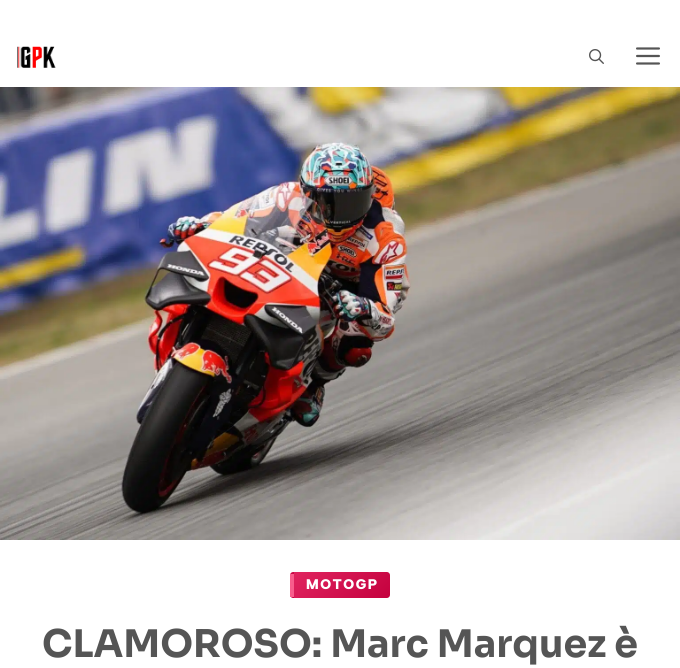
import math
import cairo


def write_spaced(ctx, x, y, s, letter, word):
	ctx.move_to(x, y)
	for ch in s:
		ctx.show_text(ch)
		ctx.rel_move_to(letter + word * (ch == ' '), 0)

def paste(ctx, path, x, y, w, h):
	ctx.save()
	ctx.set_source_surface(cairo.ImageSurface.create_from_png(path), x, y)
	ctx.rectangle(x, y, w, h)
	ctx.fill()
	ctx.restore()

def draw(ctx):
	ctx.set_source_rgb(1, 1, 1)
	ctx.paint()
	paste(ctx, 'media/1.png', 17, 46, 39, 22)
	paste(ctx, 'media/2.png', 589, 49, 15, 15)
	paste(ctx, 'media/3.png', 636, 47, 24, 18)
	paste(ctx, 'media/4.png', 0, 87, 680, 453)
	gradient = cairo.LinearGradient(216, 555, 277, 616)
	gradient.add_color_stop_rgba(0, 0.878, 0.141, 0.373, 1)
	gradient.add_color_stop_rgba(1, 0.769, 0.004, 0.243, 1)
	ctx.set_source(gradient)
	ctx.new_path()
	ctx.move_to(293, 572)
	ctx.line_to(294, 572)
	ctx.line_to(294, 598)
	ctx.line_to(293, 598)
	ctx.curve_to(291.5, 598, 290, 596.5, 290, 595)
	ctx.line_to(290, 575)
	ctx.curve_to(290, 573.5, 291.5, 572, 293, 572)
	ctx.close_path()
	ctx.fill()
	gradient = cairo.LinearGradient(312, 555, 373, 616)
	gradient.add_color_stop_rgba(0, 0.878, 0.141, 0.373, 1)
	gradient.add_color_stop_rgba(1, 0.769, 0.004, 0.243, 1)
	ctx.set_source(gradient)
	ctx.new_path()
	ctx.move_to(294, 572)
	ctx.line_to(387, 572)
	ctx.curve_to(388.5, 572, 390, 573.5, 390, 575)
	ctx.line_to(390, 595)
	ctx.curve_to(390, 596.5, 388.5, 598, 387, 598)
	ctx.line_to(294, 598)
	ctx.close_path()
	ctx.fill()
	ctx.set_source_rgb(0.969, 0.365, 0.549)
	ctx.rectangle(290, 574, 4, 23)
	ctx.fill()
	ctx.select_font_face('Albert Sans Black')
	ctx.set_font_size(14)
	ctx.set_source_rgb(1, 1, 1)
	write_spaced(ctx, 306, 589, 'MOTOGP', 1.5, 0)
	ctx.select_font_face('Sora', cairo.FONT_SLANT_NORMAL, cairo.FONT_WEIGHT_BOLD)
	ctx.set_font_size(38)
	ctx.set_source_rgb(0.333, 0.333, 0.333)
	ctx.move_to(42, 657)
	ctx.show_text('CLAMOROSO: Marc Marquez è')


surface = cairo.ImageSurface(cairo.FORMAT_RGB24, 680, 668)
ctx = cairo.Context(surface)
options = cairo.FontOptions()
options.set_hint_metrics(cairo.HINT_METRICS_OFF)
options.set_hint_style(cairo.HINT_STYLE_NONE)
ctx.set_font_options(options)
ctx.set_miter_limit(4)
draw(ctx)
surface.write_to_png('image.png')
